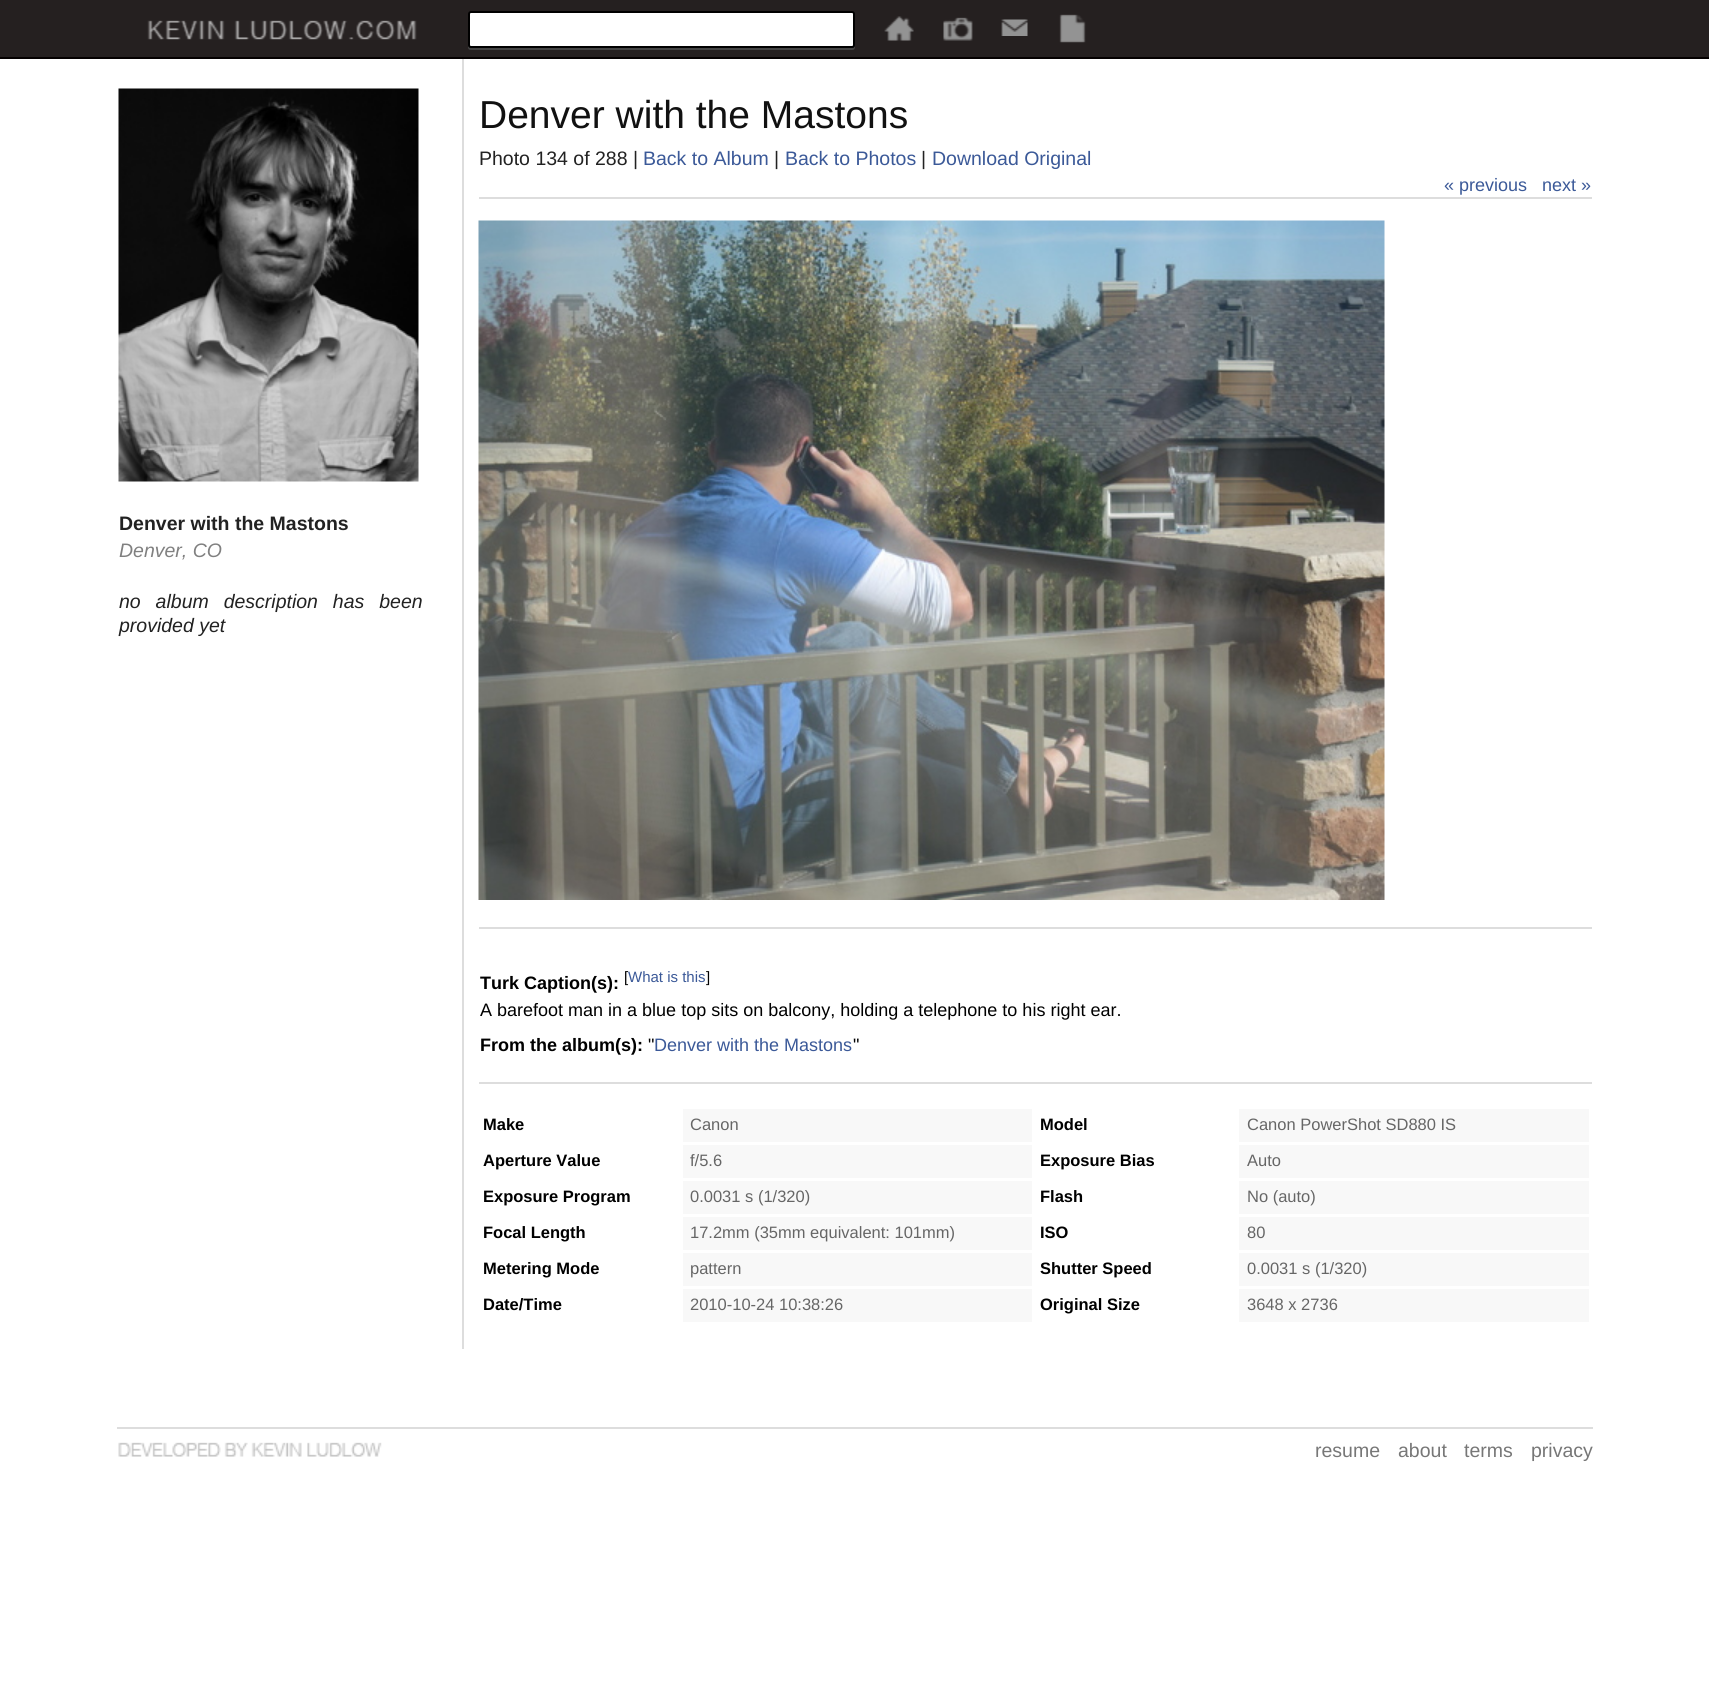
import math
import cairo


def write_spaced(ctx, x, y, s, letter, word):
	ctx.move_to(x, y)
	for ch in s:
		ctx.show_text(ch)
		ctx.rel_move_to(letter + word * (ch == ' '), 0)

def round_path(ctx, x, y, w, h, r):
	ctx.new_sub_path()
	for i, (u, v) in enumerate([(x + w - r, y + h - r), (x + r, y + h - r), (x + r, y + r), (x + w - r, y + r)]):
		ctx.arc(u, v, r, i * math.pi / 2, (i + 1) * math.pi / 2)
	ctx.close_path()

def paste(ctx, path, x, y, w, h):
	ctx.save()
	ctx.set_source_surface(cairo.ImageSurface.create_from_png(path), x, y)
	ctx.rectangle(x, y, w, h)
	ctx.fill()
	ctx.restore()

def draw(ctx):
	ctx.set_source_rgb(1, 1, 1)
	ctx.paint()
	ctx.set_source_rgb(0.145, 0.125, 0.125)
	ctx.rectangle(0, 0, 1709, 57)
	ctx.fill()
	ctx.set_source_rgb(0.016, 0, 0)
	ctx.rectangle(0, 57, 1709, 2)
	ctx.fill()
	paste(ctx, 'media/1.png', 147, 20, 270, 20)
	ctx.set_source_rgb(0.267, 0.267, 0.267)
	ctx.new_path()
	ctx.move_to(468, 45)
	ctx.line_to(468, 47)
	ctx.curve_to(468, 49, 469, 50, 471, 50)
	ctx.line_to(852, 50)
	ctx.curve_to(854, 50, 855, 49, 855, 47)
	ctx.line_to(855, 45)
	ctx.curve_to(855, 47, 854, 48, 852, 48)
	ctx.line_to(471, 48)
	ctx.curve_to(469, 48, 468, 47, 468, 45)
	ctx.close_path()
	ctx.fill()
	ctx.set_source_rgb(1, 1, 1)
	round_path(ctx, 469, 12, 385, 35, 2)
	ctx.fill_preserve()
	ctx.set_source_rgb(0, 0, 0)
	ctx.stroke()
	paste(ctx, 'media/2.png', 884, 16, 30, 25)
	paste(ctx, 'media/3.png', 943, 17, 30, 24)
	paste(ctx, 'media/4.png', 1001, 19, 27, 17)
	paste(ctx, 'media/5.png', 1059, 14, 27, 29)
	ctx.set_source_rgb(0.867, 0.867, 0.867)
	ctx.rectangle(462, 59, 2, 1290)
	ctx.fill()
	paste(ctx, 'media/6.png', 118, 88, 301, 394)
	ctx.select_font_face('Liberation Sans', cairo.FONT_SLANT_NORMAL, cairo.FONT_WEIGHT_BOLD)
	ctx.set_font_size(19.5)
	ctx.set_source_rgb(0.133, 0.133, 0.133)
	ctx.move_to(119, 530)
	ctx.show_text('Denver with the Mastons')
	ctx.select_font_face('Liberation Sans', cairo.FONT_SLANT_ITALIC)
	ctx.set_source_rgb(0.502, 0.502, 0.502)
	ctx.move_to(119, 557)
	ctx.show_text('Denver, CO')
	ctx.set_source_rgb(0.133, 0.133, 0.133)
	write_spaced(ctx, 119, 608, 'no album description has been', 0, 9.5)
	ctx.move_to(119, 632)
	ctx.show_text('provided yet')
	ctx.set_source_rgb(0.867, 0.867, 0.867)
	ctx.rectangle(479, 197, 1113, 2)
	ctx.fill()
	ctx.select_font_face('Liberation Sans')
	ctx.set_font_size(39)
	ctx.set_source_rgb(0.067, 0.067, 0.067)
	ctx.move_to(479, 128)
	ctx.show_text('Denver with the Mastons')
	ctx.set_font_size(19.5)
	ctx.set_source_rgb(0.133, 0.133, 0.133)
	ctx.move_to(479, 165)
	ctx.show_text('Photo 134 of 288 |')
	ctx.set_source_rgb(0.231, 0.349, 0.596)
	ctx.move_to(643, 165)
	ctx.show_text('Back to Album')
	ctx.set_source_rgb(0.133, 0.133, 0.133)
	ctx.move_to(774, 165)
	ctx.show_text('|')
	ctx.set_source_rgb(0.231, 0.349, 0.596)
	ctx.move_to(785, 165)
	ctx.show_text('Back to Photos')
	ctx.set_source_rgb(0.133, 0.133, 0.133)
	ctx.move_to(921, 165)
	ctx.show_text('|')
	ctx.set_source_rgb(0.231, 0.349, 0.596)
	ctx.move_to(932, 165)
	ctx.show_text('Download Original')
	ctx.set_font_size(18)
	ctx.move_to(1444, 191)
	ctx.show_text('« previous')
	ctx.move_to(1542, 191)
	ctx.show_text('next »')
	paste(ctx, 'media/7.png', 478, 220, 907, 680)
	ctx.set_source_rgb(0.867, 0.867, 0.867)
	ctx.rectangle(479, 927, 1113, 2)
	ctx.fill()
	ctx.select_font_face('Liberation Sans', cairo.FONT_SLANT_NORMAL, cairo.FONT_WEIGHT_BOLD)
	ctx.set_source_rgb(0, 0, 0)
	ctx.move_to(480, 989)
	ctx.show_text('Turk Caption(s):')
	ctx.select_font_face('Liberation Sans')
	ctx.set_font_size(15)
	ctx.move_to(624, 982)
	ctx.show_text('[')
	ctx.set_source_rgb(0.231, 0.349, 0.596)
	ctx.move_to(628, 982)
	ctx.show_text('What is this')
	ctx.set_source_rgb(0, 0, 0)
	ctx.move_to(706, 982)
	ctx.show_text(']')
	ctx.set_font_size(18)
	ctx.move_to(480, 1016)
	ctx.show_text('A barefoot man in a blue top sits on balcony, holding a telephone to his right ear.')
	ctx.select_font_face('Liberation Sans', cairo.FONT_SLANT_NORMAL, cairo.FONT_WEIGHT_BOLD)
	ctx.move_to(480, 1051)
	ctx.show_text('From the album(s):')
	ctx.select_font_face('Liberation Sans')
	ctx.move_to(648, 1051)
	ctx.show_text('"')
	ctx.set_source_rgb(0.231, 0.349, 0.596)
	ctx.move_to(654, 1051)
	ctx.show_text('Denver with the Mastons')
	ctx.set_source_rgb(0, 0, 0)
	ctx.move_to(853, 1051)
	ctx.show_text('"')
	ctx.set_source_rgb(0.867, 0.867, 0.867)
	ctx.rectangle(479, 1082, 1113, 2)
	ctx.fill()
	ctx.select_font_face('Liberation Sans', cairo.FONT_SLANT_NORMAL, cairo.FONT_WEIGHT_BOLD)
	ctx.set_font_size(16.5)
	ctx.set_source_rgb(0, 0, 0)
	ctx.move_to(483, 1130)
	ctx.show_text('Make')
	ctx.set_source_rgb(0.969, 0.969, 0.969)
	ctx.rectangle(683, 1109, 349, 33)
	ctx.fill()
	ctx.select_font_face('Liberation Sans')
	ctx.set_source_rgb(0.4, 0.4, 0.4)
	ctx.move_to(690, 1130)
	ctx.show_text('Canon')
	ctx.select_font_face('Liberation Sans', cairo.FONT_SLANT_NORMAL, cairo.FONT_WEIGHT_BOLD)
	ctx.set_source_rgb(0, 0, 0)
	ctx.move_to(483, 1166)
	ctx.show_text('Aperture Value')
	ctx.set_source_rgb(0.969, 0.969, 0.969)
	ctx.rectangle(683, 1145, 349, 33)
	ctx.fill()
	ctx.select_font_face('Liberation Sans')
	ctx.set_source_rgb(0.4, 0.4, 0.4)
	ctx.move_to(690, 1166)
	ctx.show_text('f/5.6')
	ctx.select_font_face('Liberation Sans', cairo.FONT_SLANT_NORMAL, cairo.FONT_WEIGHT_BOLD)
	ctx.set_source_rgb(0, 0, 0)
	ctx.move_to(483, 1202)
	ctx.show_text('Exposure Program')
	ctx.set_source_rgb(0.969, 0.969, 0.969)
	ctx.rectangle(683, 1181, 349, 33)
	ctx.fill()
	ctx.select_font_face('Liberation Sans')
	ctx.set_source_rgb(0.4, 0.4, 0.4)
	ctx.move_to(690, 1202)
	ctx.show_text('0.0031 s (1/320)')
	ctx.select_font_face('Liberation Sans', cairo.FONT_SLANT_NORMAL, cairo.FONT_WEIGHT_BOLD)
	ctx.set_source_rgb(0, 0, 0)
	ctx.move_to(483, 1238)
	ctx.show_text('Focal Length')
	ctx.set_source_rgb(0.969, 0.969, 0.969)
	ctx.rectangle(683, 1217, 349, 33)
	ctx.fill()
	ctx.select_font_face('Liberation Sans')
	ctx.set_source_rgb(0.4, 0.4, 0.4)
	ctx.move_to(690, 1238)
	ctx.show_text('17.2mm (35mm equivalent: 101mm)')
	ctx.select_font_face('Liberation Sans', cairo.FONT_SLANT_NORMAL, cairo.FONT_WEIGHT_BOLD)
	ctx.set_source_rgb(0, 0, 0)
	ctx.move_to(483, 1274)
	ctx.show_text('Metering Mode')
	ctx.set_source_rgb(0.969, 0.969, 0.969)
	ctx.rectangle(683, 1253, 349, 33)
	ctx.fill()
	ctx.select_font_face('Liberation Sans')
	ctx.set_source_rgb(0.4, 0.4, 0.4)
	ctx.move_to(690, 1274)
	ctx.show_text('pattern')
	ctx.select_font_face('Liberation Sans', cairo.FONT_SLANT_NORMAL, cairo.FONT_WEIGHT_BOLD)
	ctx.set_source_rgb(0, 0, 0)
	ctx.move_to(483, 1310)
	ctx.show_text('Date/Time')
	ctx.set_source_rgb(0.969, 0.969, 0.969)
	ctx.rectangle(683, 1289, 349, 33)
	ctx.fill()
	ctx.select_font_face('Liberation Sans')
	ctx.set_source_rgb(0.4, 0.4, 0.4)
	ctx.move_to(690, 1310)
	ctx.show_text('2010-10-24 10:38:26')
	ctx.select_font_face('Liberation Sans', cairo.FONT_SLANT_NORMAL, cairo.FONT_WEIGHT_BOLD)
	ctx.set_source_rgb(0, 0, 0)
	ctx.move_to(1040, 1130)
	ctx.show_text('Model')
	ctx.set_source_rgb(0.969, 0.969, 0.969)
	ctx.rectangle(1239, 1109, 350, 33)
	ctx.fill()
	ctx.select_font_face('Liberation Sans')
	ctx.set_source_rgb(0.4, 0.4, 0.4)
	ctx.move_to(1247, 1130)
	ctx.show_text('Canon PowerShot SD880 IS')
	ctx.select_font_face('Liberation Sans', cairo.FONT_SLANT_NORMAL, cairo.FONT_WEIGHT_BOLD)
	ctx.set_source_rgb(0, 0, 0)
	ctx.move_to(1040, 1166)
	ctx.show_text('Exposure Bias')
	ctx.set_source_rgb(0.969, 0.969, 0.969)
	ctx.rectangle(1239, 1145, 350, 33)
	ctx.fill()
	ctx.select_font_face('Liberation Sans')
	ctx.set_source_rgb(0.4, 0.4, 0.4)
	ctx.move_to(1247, 1166)
	ctx.show_text('Auto')
	ctx.select_font_face('Liberation Sans', cairo.FONT_SLANT_NORMAL, cairo.FONT_WEIGHT_BOLD)
	ctx.set_source_rgb(0, 0, 0)
	ctx.move_to(1040, 1202)
	ctx.show_text('Flash')
	ctx.set_source_rgb(0.969, 0.969, 0.969)
	ctx.rectangle(1239, 1181, 350, 33)
	ctx.fill()
	ctx.select_font_face('Liberation Sans')
	ctx.set_source_rgb(0.4, 0.4, 0.4)
	ctx.move_to(1247, 1202)
	ctx.show_text('No (auto)')
	ctx.select_font_face('Liberation Sans', cairo.FONT_SLANT_NORMAL, cairo.FONT_WEIGHT_BOLD)
	ctx.set_source_rgb(0, 0, 0)
	ctx.move_to(1040, 1238)
	ctx.show_text('ISO')
	ctx.set_source_rgb(0.969, 0.969, 0.969)
	ctx.rectangle(1239, 1217, 350, 33)
	ctx.fill()
	ctx.select_font_face('Liberation Sans')
	ctx.set_source_rgb(0.4, 0.4, 0.4)
	ctx.move_to(1247, 1238)
	ctx.show_text('80')
	ctx.select_font_face('Liberation Sans', cairo.FONT_SLANT_NORMAL, cairo.FONT_WEIGHT_BOLD)
	ctx.set_source_rgb(0, 0, 0)
	ctx.move_to(1040, 1274)
	ctx.show_text('Shutter Speed')
	ctx.set_source_rgb(0.969, 0.969, 0.969)
	ctx.rectangle(1239, 1253, 350, 33)
	ctx.fill()
	ctx.select_font_face('Liberation Sans')
	ctx.set_source_rgb(0.4, 0.4, 0.4)
	ctx.move_to(1247, 1274)
	ctx.show_text('0.0031 s (1/320)')
	ctx.select_font_face('Liberation Sans', cairo.FONT_SLANT_NORMAL, cairo.FONT_WEIGHT_BOLD)
	ctx.set_source_rgb(0, 0, 0)
	ctx.move_to(1040, 1310)
	ctx.show_text('Original Size')
	ctx.set_source_rgb(0.969, 0.969, 0.969)
	ctx.rectangle(1239, 1289, 350, 33)
	ctx.fill()
	ctx.select_font_face('Liberation Sans')
	ctx.set_source_rgb(0.4, 0.4, 0.4)
	ctx.move_to(1247, 1310)
	ctx.show_text('3648 x 2736')
	ctx.set_source_rgb(0.867, 0.867, 0.867)
	ctx.rectangle(117, 1427, 1476, 2)
	ctx.fill()
	paste(ctx, 'media/8.png', 118, 1442, 264, 15)
	ctx.set_font_size(19.5)
	ctx.set_source_rgb(0.467, 0.467, 0.467)
	for x, y, s in [
		(1315, 1457, 'resume'),
		(1398, 1457, 'about'),
		(1464, 1457, 'terms'),
		(1531, 1457, 'privacy'),
	]:
		ctx.move_to(x, y)
		ctx.show_text(s)


surface = cairo.ImageSurface(cairo.FORMAT_RGB24, 1709, 1698)
ctx = cairo.Context(surface)
options = cairo.FontOptions()
options.set_hint_metrics(cairo.HINT_METRICS_OFF)
options.set_hint_style(cairo.HINT_STYLE_NONE)
ctx.set_font_options(options)
ctx.set_miter_limit(4)
draw(ctx)
surface.write_to_png('image.png')
